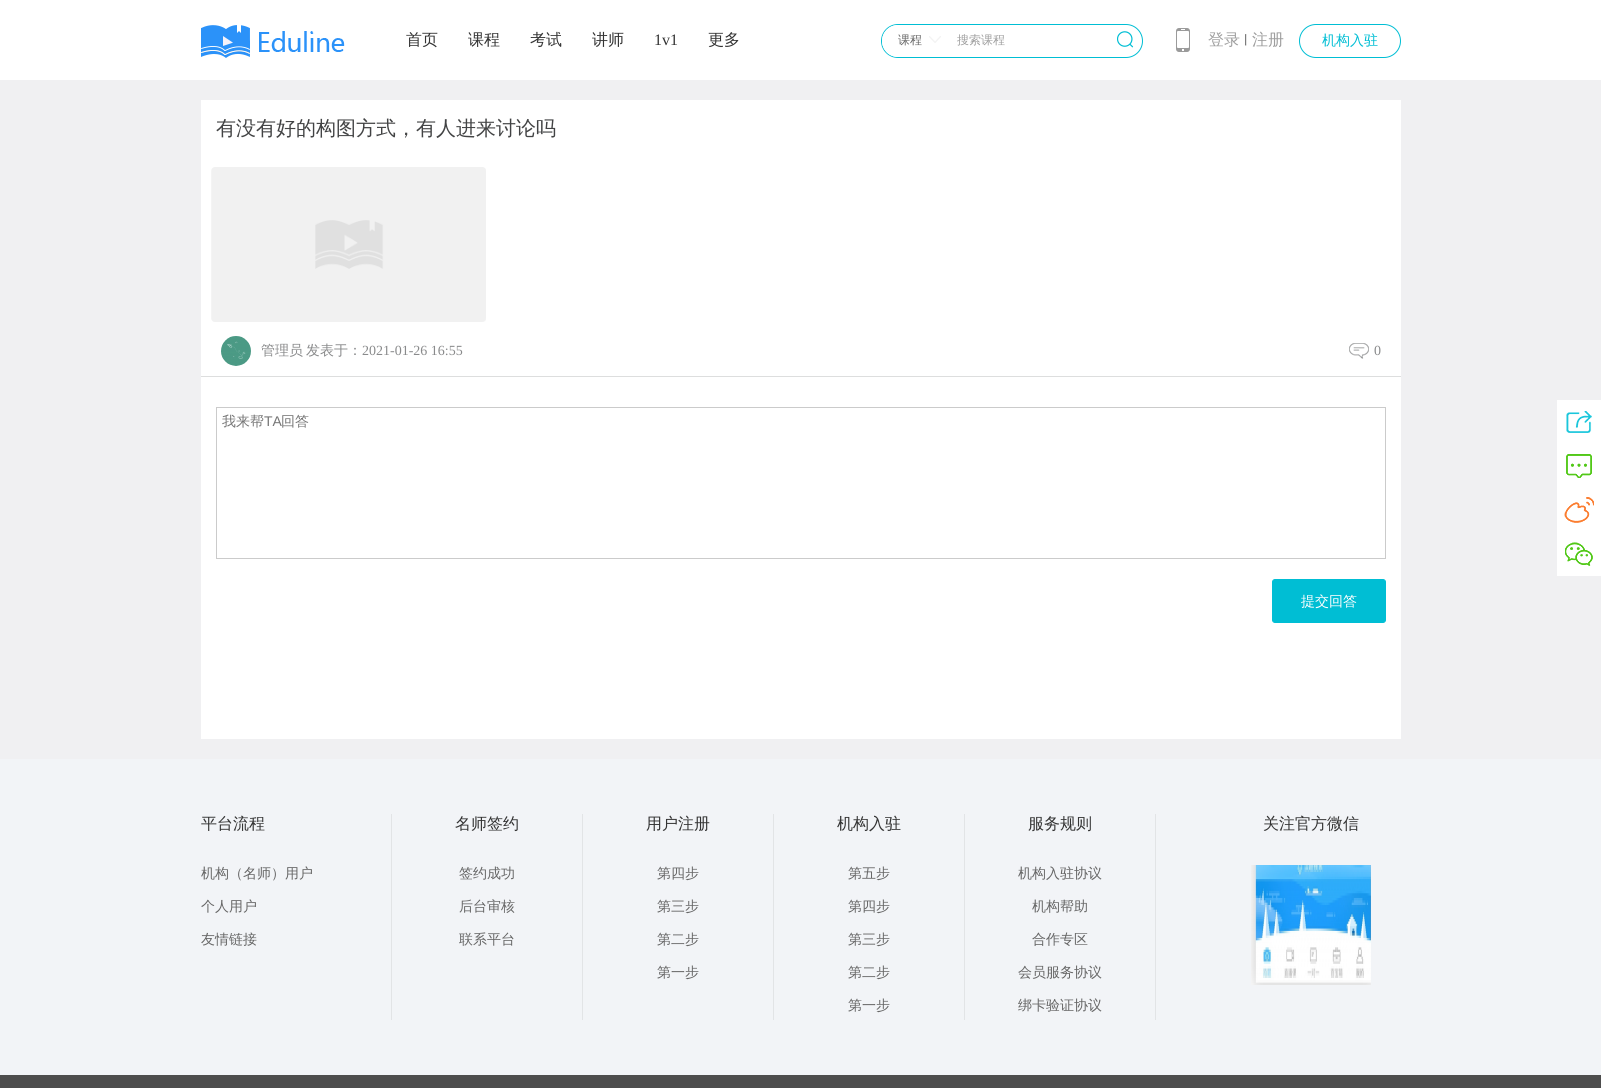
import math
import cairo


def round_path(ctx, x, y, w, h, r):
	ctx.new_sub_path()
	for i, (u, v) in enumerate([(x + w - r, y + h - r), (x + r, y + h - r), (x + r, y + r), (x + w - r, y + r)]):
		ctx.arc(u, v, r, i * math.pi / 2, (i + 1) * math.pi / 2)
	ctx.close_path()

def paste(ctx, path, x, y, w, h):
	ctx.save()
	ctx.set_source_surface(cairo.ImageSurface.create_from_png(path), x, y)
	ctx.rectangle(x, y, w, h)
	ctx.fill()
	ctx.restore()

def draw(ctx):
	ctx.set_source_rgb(1, 1, 1)
	ctx.paint()
	paste(ctx, 'media/1.png', 201, 25, 144, 33)
	ctx.select_font_face('WenQuanYi Zen Hei Medium')
	ctx.set_font_size(16)
	ctx.set_source_rgb(0.2, 0.2, 0.2)
	for x, y, s in [
		(406, 45, '首页'),
		(468, 45, '课程'),
		(530, 45, '考试'),
		(592, 45, '讲师'),
	]:
		ctx.move_to(x, y)
		ctx.show_text(s)
	ctx.select_font_face('Liberation Serif')
	ctx.move_to(654, 45)
	ctx.show_text('1v1')
	ctx.select_font_face('WenQuanYi Zen Hei Medium')
	ctx.move_to(708, 45)
	ctx.show_text('更多')
	round_path(ctx, 881.5, 24.5, 261, 33, 16.5)
	ctx.set_source_rgb(0, 0.745, 0.831)
	ctx.set_line_width(1)
	ctx.stroke()
	ctx.set_source_rgb(1, 1, 1)
	ctx.new_path()
	ctx.move_to(898, 25)
	ctx.line_to(952, 25)
	ctx.line_to(952, 57)
	ctx.line_to(898, 57)
	ctx.curve_to(889, 57, 882, 50, 882, 41)
	ctx.curve_to(882, 32, 889, 25, 898, 25)
	ctx.close_path()
	ctx.fill()
	ctx.set_font_size(12)
	ctx.set_source_rgb(0.4, 0.4, 0.4)
	ctx.move_to(898, 44)
	ctx.show_text('课程')
	paste(ctx, 'media/2.png', 929, 36, 12, 7)
	ctx.set_source_rgb(0.62, 0.62, 0.62)
	ctx.move_to(957, 44)
	ctx.show_text('搜索课程')
	paste(ctx, 'media/3.png', 1117, 31, 17, 17)
	paste(ctx, 'media/4.png', 1176, 28, 14, 24)
	ctx.set_font_size(16)
	ctx.move_to(1208, 45)
	ctx.show_text('登录')
	ctx.set_font_size(12)
	ctx.set_source_rgb(0.333, 0.333, 0.333)
	ctx.move_to(1240, 44)
	ctx.show_text('丨')
	ctx.set_font_size(16)
	ctx.set_source_rgb(0.62, 0.62, 0.62)
	ctx.move_to(1252, 45)
	ctx.show_text('注册')
	round_path(ctx, 1299.5, 24.5, 101, 33, 16.5)
	ctx.set_source_rgb(0, 0.745, 0.831)
	ctx.stroke()
	ctx.set_font_size(14)
	ctx.move_to(1322, 45)
	ctx.show_text('机构入驻')
	ctx.set_source_rgb(0.941, 0.941, 0.949)
	ctx.rectangle(0, 80, 1601, 679)
	ctx.fill()
	ctx.set_source_rgb(1, 1, 1)
	ctx.rectangle(201, 100, 1200, 639)
	ctx.fill()
	ctx.set_font_size(20)
	ctx.set_source_rgb(0.259, 0.263, 0.267)
	ctx.move_to(216, 135)
	ctx.show_text('有没有好的构图方式，有人进来讨论吗')
	paste(ctx, 'media/5.png', 211, 167, 275, 155)
	ctx.set_source_rgb(0.867, 0.871, 0.871)
	ctx.rectangle(201, 376, 1200, 1)
	ctx.fill()
	paste(ctx, 'media/6.png', 221, 336, 30, 30)
	ctx.set_font_size(14)
	ctx.set_source_rgb(0.537, 0.541, 0.545)
	ctx.move_to(261, 355)
	ctx.show_text('管理员')
	ctx.move_to(306, 355)
	ctx.show_text('发表于：')
	ctx.select_font_face('Liberation Serif')
	ctx.move_to(362, 355)
	ctx.show_text('2021-01-26 16:55')
	paste(ctx, 'media/7.png', 1349, 343, 20, 16)
	ctx.move_to(1374, 355)
	ctx.show_text('0')
	ctx.rectangle(216.5, 407.5, 1169, 151)
	ctx.set_source_rgb(0.796, 0.796, 0.796)
	ctx.stroke()
	ctx.select_font_face('WenQuanYi Zen Hei Medium')
	ctx.set_source_rgb(0.459, 0.459, 0.459)
	ctx.move_to(222, 426)
	ctx.show_text('我来帮')
	ctx.select_font_face('Liberation Sans')
	ctx.move_to(264, 426)
	ctx.show_text('TA')
	ctx.select_font_face('WenQuanYi Zen Hei Medium')
	ctx.move_to(281, 426)
	ctx.show_text('回答')
	ctx.set_source_rgb(0, 0.745, 0.831)
	round_path(ctx, 1272.5, 579.5, 113, 43, 2.5)
	ctx.fill_preserve()
	ctx.stroke()
	ctx.set_source_rgb(1, 1, 1)
	ctx.move_to(1301, 606)
	ctx.show_text('提交回答')
	ctx.rectangle(1557, 400, 44, 176)
	ctx.fill()
	paste(ctx, 'media/8.png', 1566, 411, 26, 22)
	paste(ctx, 'media/9.png', 1566, 454, 26, 24)
	paste(ctx, 'media/10.png', 1564, 497, 30, 26)
	paste(ctx, 'media/11.png', 1565, 542, 28, 24)
	ctx.set_source_rgb(0.949, 0.957, 0.965)
	ctx.rectangle(0, 759, 1601, 316)
	ctx.fill()
	ctx.set_source_rgb(0.886, 0.894, 0.902)
	ctx.rectangle(391, 814, 1, 206)
	ctx.fill()
	ctx.set_font_size(16)
	ctx.set_source_rgb(0.2, 0.2, 0.2)
	ctx.move_to(201, 829)
	ctx.show_text('平台流程')
	ctx.set_font_size(14)
	ctx.set_source_rgb(0.4, 0.4, 0.4)
	for x, y, s in [
		(201, 878, '机构（名师）用户'),
		(201, 911, '个人用户'),
		(201, 944, '友情链接'),
	]:
		ctx.move_to(x, y)
		ctx.show_text(s)
	ctx.set_source_rgb(0.886, 0.894, 0.902)
	ctx.rectangle(582, 814, 1, 206)
	ctx.fill()
	ctx.set_font_size(16)
	ctx.set_source_rgb(0.2, 0.2, 0.2)
	ctx.move_to(455, 829)
	ctx.show_text('名师签约')
	ctx.set_font_size(14)
	ctx.set_source_rgb(0.4, 0.4, 0.4)
	for x, y, s in [
		(459, 878, '签约成功'),
		(459, 911, '后台审核'),
		(459, 944, '联系平台'),
	]:
		ctx.move_to(x, y)
		ctx.show_text(s)
	ctx.set_source_rgb(0.886, 0.894, 0.902)
	ctx.rectangle(773, 814, 1, 206)
	ctx.fill()
	ctx.set_font_size(16)
	ctx.set_source_rgb(0.2, 0.2, 0.2)
	ctx.move_to(646, 829)
	ctx.show_text('用户注册')
	ctx.set_font_size(14)
	ctx.set_source_rgb(0.4, 0.4, 0.4)
	for x, y, s in [
		(657, 878, '第四步'),
		(657, 911, '第三步'),
		(657, 944, '第二步'),
		(657, 977, '第一步'),
	]:
		ctx.move_to(x, y)
		ctx.show_text(s)
	ctx.set_source_rgb(0.886, 0.894, 0.902)
	ctx.rectangle(964, 814, 1, 206)
	ctx.fill()
	ctx.set_font_size(16)
	ctx.set_source_rgb(0.2, 0.2, 0.2)
	ctx.move_to(837, 829)
	ctx.show_text('机构入驻')
	ctx.set_font_size(14)
	ctx.set_source_rgb(0.4, 0.4, 0.4)
	for x, y, s in [
		(848, 878, '第五步'),
		(848, 911, '第四步'),
		(848, 944, '第三步'),
		(848, 977, '第二步'),
		(848, 1010, '第一步'),
	]:
		ctx.move_to(x, y)
		ctx.show_text(s)
	ctx.set_source_rgb(0.886, 0.894, 0.902)
	ctx.rectangle(1155, 814, 1, 206)
	ctx.fill()
	ctx.set_font_size(16)
	ctx.set_source_rgb(0.2, 0.2, 0.2)
	ctx.move_to(1028, 829)
	ctx.show_text('服务规则')
	ctx.set_font_size(14)
	ctx.set_source_rgb(0.4, 0.4, 0.4)
	for x, y, s in [
		(1018, 878, '机构入驻协议'),
		(1032, 911, '机构帮助'),
		(1032, 944, '合作专区'),
		(1018, 977, '会员服务协议'),
		(1018, 1010, '绑卡验证协议'),
	]:
		ctx.move_to(x, y)
		ctx.show_text(s)
	ctx.set_font_size(16)
	ctx.set_source_rgb(0.2, 0.2, 0.2)
	ctx.move_to(1263, 829)
	ctx.show_text('关注官方微信')
	paste(ctx, 'media/12.png', 1251, 865, 120, 120)
	ctx.set_source_rgb(0.302, 0.302, 0.302)
	ctx.rectangle(0, 1075, 1601, 13)
	ctx.fill()


surface = cairo.ImageSurface(cairo.FORMAT_RGB24, 1601, 1088)
ctx = cairo.Context(surface)
options = cairo.FontOptions()
options.set_hint_metrics(cairo.HINT_METRICS_OFF)
options.set_hint_style(cairo.HINT_STYLE_NONE)
ctx.set_font_options(options)
ctx.set_miter_limit(4)
draw(ctx)
surface.write_to_png('image.png')
